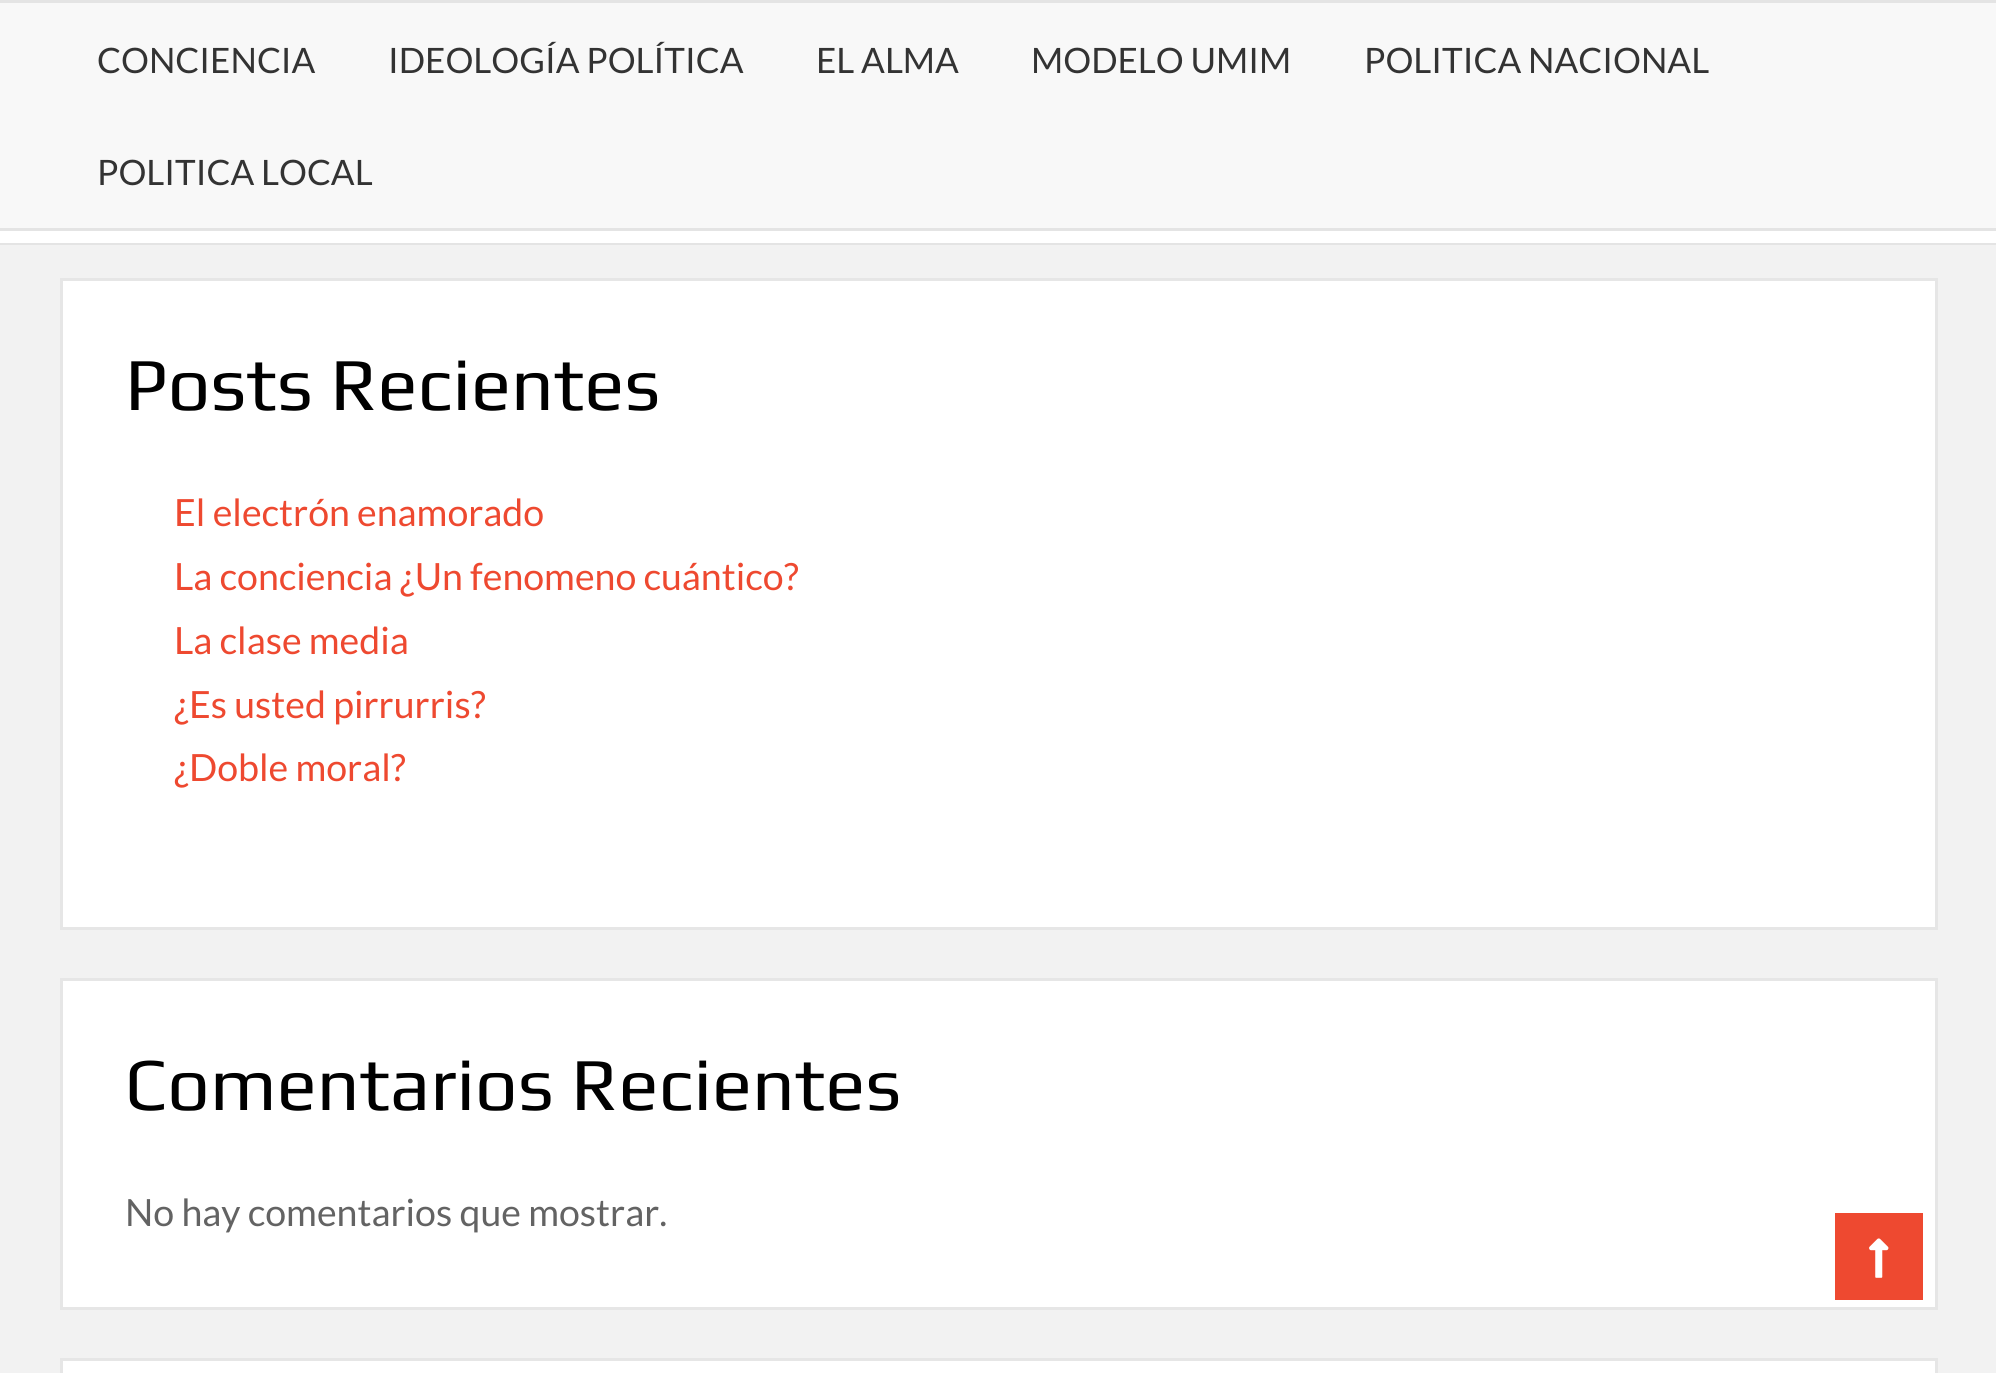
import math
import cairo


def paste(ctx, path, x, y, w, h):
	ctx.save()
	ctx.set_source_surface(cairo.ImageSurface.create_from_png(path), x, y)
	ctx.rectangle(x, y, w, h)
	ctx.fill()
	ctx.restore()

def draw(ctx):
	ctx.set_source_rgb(0.949, 0.949, 0.949)
	ctx.paint()
	ctx.set_source_rgb(0.894, 0.894, 0.894)
	ctx.new_path()
	ctx.move_to(0, 242)
	ctx.line_to(0, 245)
	ctx.line_to(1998, 245)
	ctx.line_to(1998, 3)
	ctx.line_to(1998, 242)
	ctx.close_path()
	ctx.fill()
	ctx.set_source_rgb(0.969, 0.969, 0.969)
	ctx.rectangle(0, 3, 1996, 225)
	ctx.fill()
	ctx.set_source_rgb(1, 1, 1)
	ctx.rectangle(0, 231, 1996, 12)
	ctx.fill()
	ctx.set_source_rgb(0.894, 0.894, 0.894)
	ctx.rectangle(0, 0, 1996, 3)
	ctx.rectangle(0, 228, 1996, 3)
	ctx.fill()
	ctx.select_font_face('Lato')
	ctx.set_font_size(35)
	ctx.set_source_rgb(0.2, 0.2, 0.2)
	for x, y, s in [
		(97, 73, 'CONCIENCIA'),
		(388, 73, 'IDEOLOGÍA POLÍTICA'),
		(816, 73, 'EL ALMA'),
		(1031, 73, 'MODELO UMIM'),
		(1364, 73, 'POLITICA NACIONAL'),
		(97, 185, 'POLITICA LOCAL'),
	]:
		ctx.move_to(x, y)
		ctx.show_text(s)
	ctx.set_source_rgb(1, 1, 1)
	ctx.rectangle(61.5, 279.5, 1875, 649)
	ctx.fill_preserve()
	ctx.set_source_rgb(0.902, 0.902, 0.902)
	ctx.set_line_width(3)
	ctx.stroke()
	ctx.select_font_face('Play')
	ctx.set_font_size(75)
	ctx.set_source_rgb(0, 0, 0)
	ctx.move_to(125, 410)
	ctx.show_text('Posts Recientes')
	ctx.select_font_face('Lato')
	ctx.set_font_size(37.5)
	ctx.set_source_rgb(0.933, 0.286, 0.188)
	for x, y, s in [
		(174, 526, 'El electrón enamorado'),
		(174, 590, 'La conciencia ¿Un fenomeno cuántico?'),
		(174, 654, 'La clase media'),
		(174, 718, '¿Es usted pirrurris?'),
		(174, 781, '¿Doble moral?'),
	]:
		ctx.move_to(x, y)
		ctx.show_text(s)
	ctx.set_source_rgb(1, 1, 1)
	ctx.rectangle(61.5, 979.5, 1875, 329)
	ctx.fill_preserve()
	ctx.set_source_rgb(0.902, 0.902, 0.902)
	ctx.stroke()
	ctx.select_font_face('Play')
	ctx.set_font_size(75)
	ctx.set_source_rgb(0, 0, 0)
	ctx.move_to(125, 1110)
	ctx.show_text('Comentarios Recientes')
	ctx.select_font_face('Lato')
	ctx.set_font_size(37.5)
	ctx.set_source_rgb(0.388, 0.388, 0.388)
	ctx.move_to(125, 1226)
	ctx.show_text('No hay comentarios que mostrar.')
	ctx.set_source_rgb(1, 1, 1)
	ctx.rectangle(61.5, 1359.5, 1875, 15)
	ctx.fill_preserve()
	ctx.set_source_rgb(0.902, 0.902, 0.902)
	ctx.stroke()
	ctx.set_source_rgb(0.933, 0.286, 0.188)
	ctx.rectangle(1835, 1213, 88, 87)
	ctx.fill()
	paste(ctx, 'media/1.png', 1869, 1238, 20, 40)


surface = cairo.ImageSurface(cairo.FORMAT_RGB24, 1996, 1373)
ctx = cairo.Context(surface)
options = cairo.FontOptions()
options.set_hint_metrics(cairo.HINT_METRICS_OFF)
options.set_hint_style(cairo.HINT_STYLE_NONE)
ctx.set_font_options(options)
ctx.set_miter_limit(4)
draw(ctx)
surface.write_to_png('image.png')
